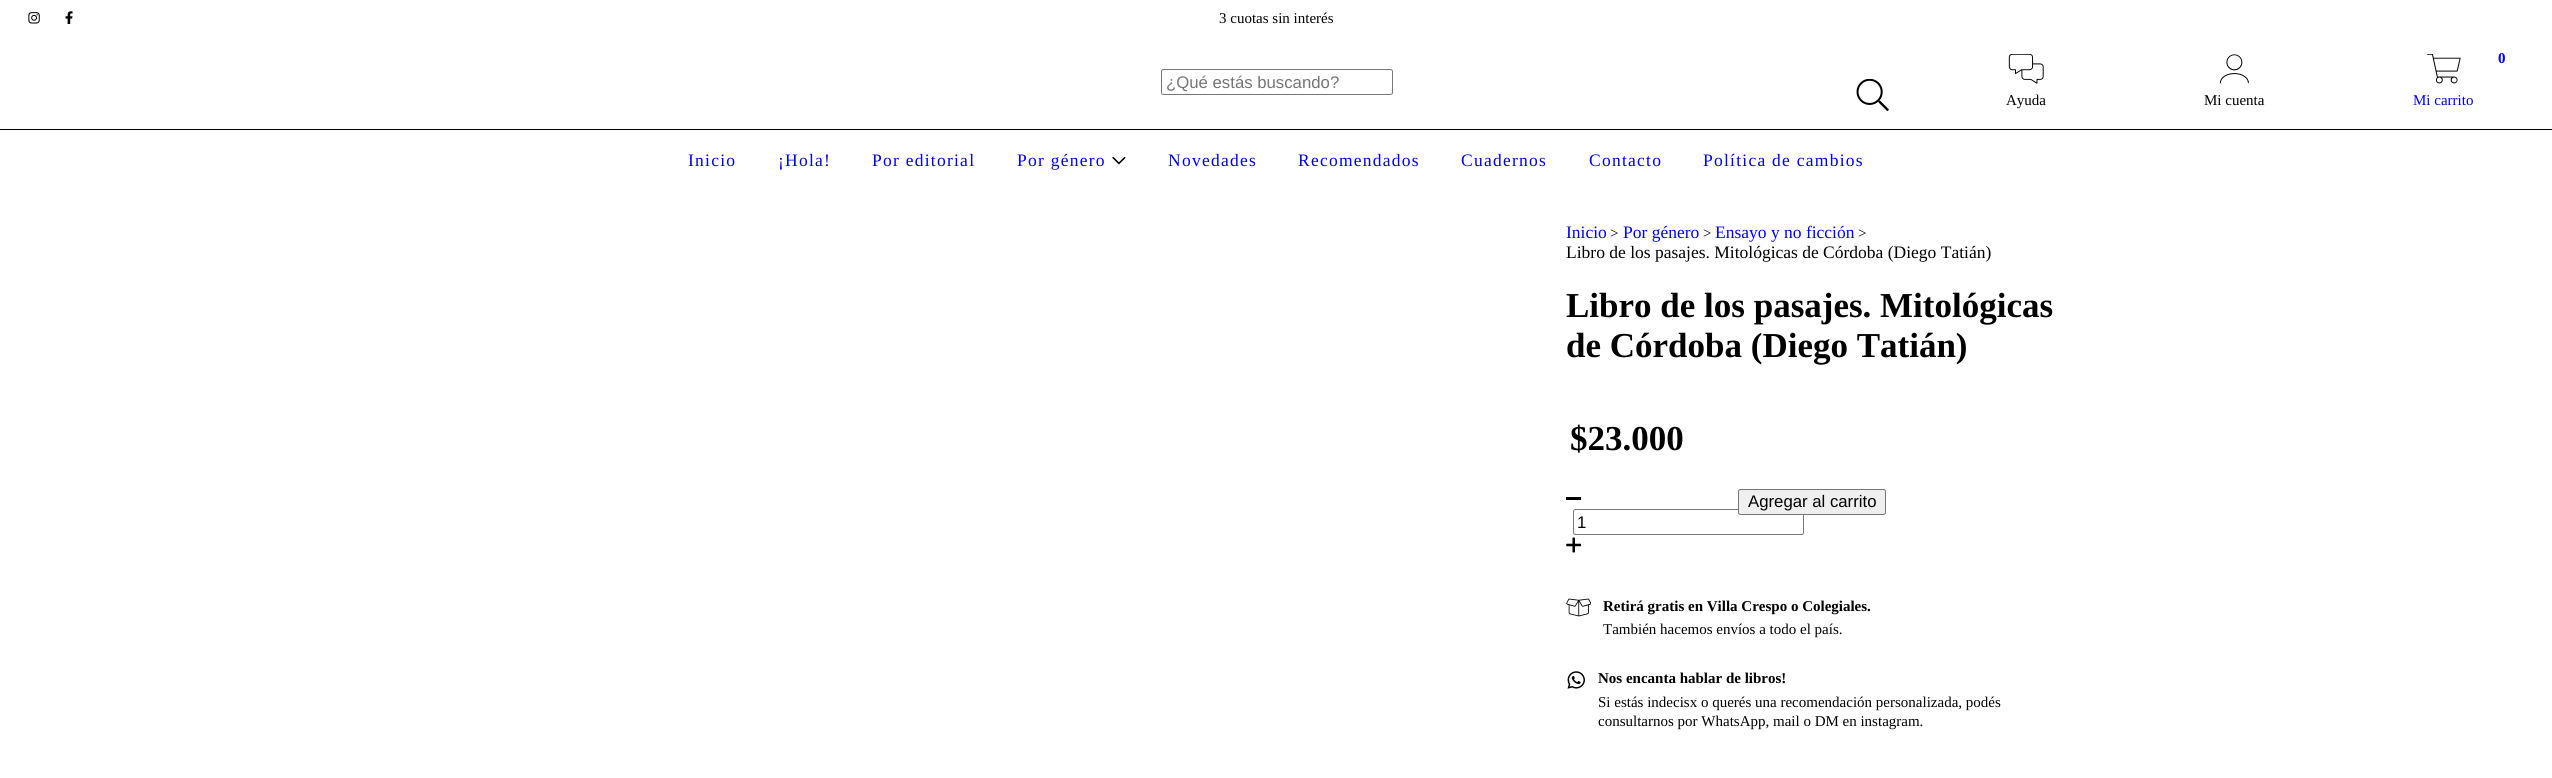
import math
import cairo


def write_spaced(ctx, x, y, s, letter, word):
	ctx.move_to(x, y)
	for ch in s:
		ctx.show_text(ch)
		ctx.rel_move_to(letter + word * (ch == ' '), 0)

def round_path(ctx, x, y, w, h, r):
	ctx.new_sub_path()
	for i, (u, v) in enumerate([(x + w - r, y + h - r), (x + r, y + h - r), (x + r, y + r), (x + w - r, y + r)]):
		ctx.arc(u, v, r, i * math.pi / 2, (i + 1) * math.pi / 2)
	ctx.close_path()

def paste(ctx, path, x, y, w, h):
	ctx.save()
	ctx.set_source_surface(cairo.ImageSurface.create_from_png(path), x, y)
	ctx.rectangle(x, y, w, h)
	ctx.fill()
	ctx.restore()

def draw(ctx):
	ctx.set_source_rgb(1, 1, 1)
	ctx.paint()
	paste(ctx, 'media/1.png', 28, 12, 12, 12)
	paste(ctx, 'media/2.png', 65, 11, 8, 13)
	ctx.select_font_face('Liberation Serif')
	ctx.set_font_size(15)
	ctx.set_source_rgb(0, 0, 0)
	ctx.move_to(1219, 23)
	ctx.show_text('3 cuotas sin interés')
	round_path(ctx, 1161.5, 69.5, 231, 25, 2)
	ctx.set_source_rgb(0.463, 0.463, 0.463)
	ctx.set_line_width(1)
	ctx.stroke()
	ctx.select_font_face('Liberation Sans')
	ctx.set_font_size(16.75)
	ctx.set_source_rgb(0.459, 0.459, 0.459)
	ctx.move_to(1166, 88)
	ctx.show_text('¿Qué estás buscando?')
	paste(ctx, 'media/3.png', 1856, 79, 33, 32)
	paste(ctx, 'media/4.png', 2008, 54, 36, 30)
	ctx.select_font_face('Liberation Serif')
	ctx.set_font_size(15)
	ctx.set_source_rgb(0, 0, 0)
	ctx.move_to(2006, 105)
	ctx.show_text('Ayuda')
	paste(ctx, 'media/5.png', 2219, 54, 30, 30)
	ctx.move_to(2204, 105)
	ctx.show_text('Mi cuenta')
	paste(ctx, 'media/6.png', 2427, 54, 34, 30)
	ctx.select_font_face('Liberation Serif', cairo.FONT_SLANT_NORMAL, cairo.FONT_WEIGHT_BOLD)
	ctx.set_source_rgb(0, 0, 0.933)
	ctx.move_to(2498, 63)
	ctx.show_text('0')
	ctx.select_font_face('Liberation Serif')
	ctx.move_to(2413, 105)
	ctx.show_text('Mi carrito')
	ctx.set_source_rgb(0, 0, 0)
	ctx.rectangle(0, 129, 2552, 1)
	ctx.fill()
	ctx.set_font_size(17.5)
	ctx.set_source_rgb(0, 0, 0.933)
	for x, y, s in [
		(688, 166, 'Inicio'),
		(778, 166, '¡Hola!'),
		(872, 166, 'Por editorial'),
		(1017, 166, 'Por género'),
	]:
		write_spaced(ctx, x, y, s, 1.25, 0)
	paste(ctx, 'media/7.png', 1112, 156, 14, 9)
	for x, y, s in [
		(1168, 166, 'Novedades'),
		(1298, 166, 'Recomendados'),
		(1461, 166, 'Cuadernos'),
		(1589, 166, 'Contacto'),
		(1703, 166, 'Política de cambios'),
	]:
		write_spaced(ctx, x, y, s, 1.25, 0)
	ctx.move_to(1566, 238)
	ctx.show_text('Inicio')
	ctx.set_font_size(15)
	ctx.set_source_rgb(0, 0, 0)
	ctx.move_to(1610, 238)
	ctx.show_text('>')
	ctx.set_font_size(17.5)
	ctx.set_source_rgb(0, 0, 0.933)
	ctx.move_to(1623, 238)
	ctx.show_text('Por género')
	ctx.set_font_size(15)
	ctx.set_source_rgb(0, 0, 0)
	ctx.move_to(1703, 238)
	ctx.show_text('>')
	ctx.set_font_size(17.5)
	ctx.set_source_rgb(0, 0, 0.933)
	ctx.move_to(1715, 238)
	ctx.show_text('Ensayo y no ficción')
	ctx.set_font_size(15)
	ctx.set_source_rgb(0, 0, 0)
	ctx.move_to(1858, 238)
	ctx.show_text('>')
	ctx.set_font_size(17.5)
	ctx.move_to(1566, 258)
	ctx.show_text('Libro de los pasajes. Mitológicas de Córdoba (Diego Tatián)')
	ctx.select_font_face('Liberation Serif', cairo.FONT_SLANT_NORMAL, cairo.FONT_WEIGHT_BOLD)
	ctx.set_font_size(35)
	for x, y, s in [
		(1566, 317, 'Libro de los pasajes. Mitológicas'),
		(1566, 357, 'de Córdoba (Diego Tatián)'),
		(1570, 450, '$23.000'),
	]:
		ctx.move_to(x, y)
		ctx.show_text(s)
	round_path(ctx, 1573.5, 509.5, 230, 25, 2)
	ctx.set_source_rgb(0.463, 0.463, 0.463)
	ctx.stroke()
	ctx.set_source_rgb(0.937, 0.937, 0.937)
	round_path(ctx, 1738.5, 489.5, 147, 25, 2)
	ctx.fill_preserve()
	ctx.set_source_rgb(0.463, 0.463, 0.463)
	ctx.stroke()
	ctx.select_font_face('Liberation Sans')
	ctx.set_font_size(16.75)
	ctx.set_source_rgb(0, 0, 0)
	ctx.move_to(1748, 507)
	ctx.show_text('Agregar al carrito')
	ctx.rectangle(1566, 497, 15, 3)
	ctx.fill()
	ctx.move_to(1577, 528)
	ctx.show_text('1')
	paste(ctx, 'media/8.png', 1566, 537, 15, 16)
	paste(ctx, 'media/9.png', 1566, 598, 25, 19)
	ctx.select_font_face('Liberation Serif', cairo.FONT_SLANT_NORMAL, cairo.FONT_WEIGHT_BOLD)
	ctx.set_font_size(15)
	ctx.move_to(1603, 611)
	ctx.show_text('Retirá gratis en Villa Crespo o Colegiales.')
	ctx.select_font_face('Liberation Serif')
	ctx.move_to(1603, 634)
	ctx.show_text('También hacemos envíos a todo el país.')
	paste(ctx, 'media/10.png', 1567, 671, 18, 18)
	ctx.select_font_face('Liberation Serif', cairo.FONT_SLANT_NORMAL, cairo.FONT_WEIGHT_BOLD)
	ctx.move_to(1598, 683)
	ctx.show_text('Nos encanta hablar de libros!')
	ctx.select_font_face('Liberation Serif')
	ctx.move_to(1598, 707)
	ctx.show_text('Si estás indecisx o querés una recomendación personalizada, podés')
	ctx.move_to(1598, 726)
	ctx.show_text('consultarnos por WhatsApp, mail o DM en instagram.')


surface = cairo.ImageSurface(cairo.FORMAT_RGB24, 2552, 778)
ctx = cairo.Context(surface)
options = cairo.FontOptions()
options.set_hint_metrics(cairo.HINT_METRICS_OFF)
options.set_hint_style(cairo.HINT_STYLE_NONE)
ctx.set_font_options(options)
ctx.set_miter_limit(4)
draw(ctx)
surface.write_to_png('image.png')
